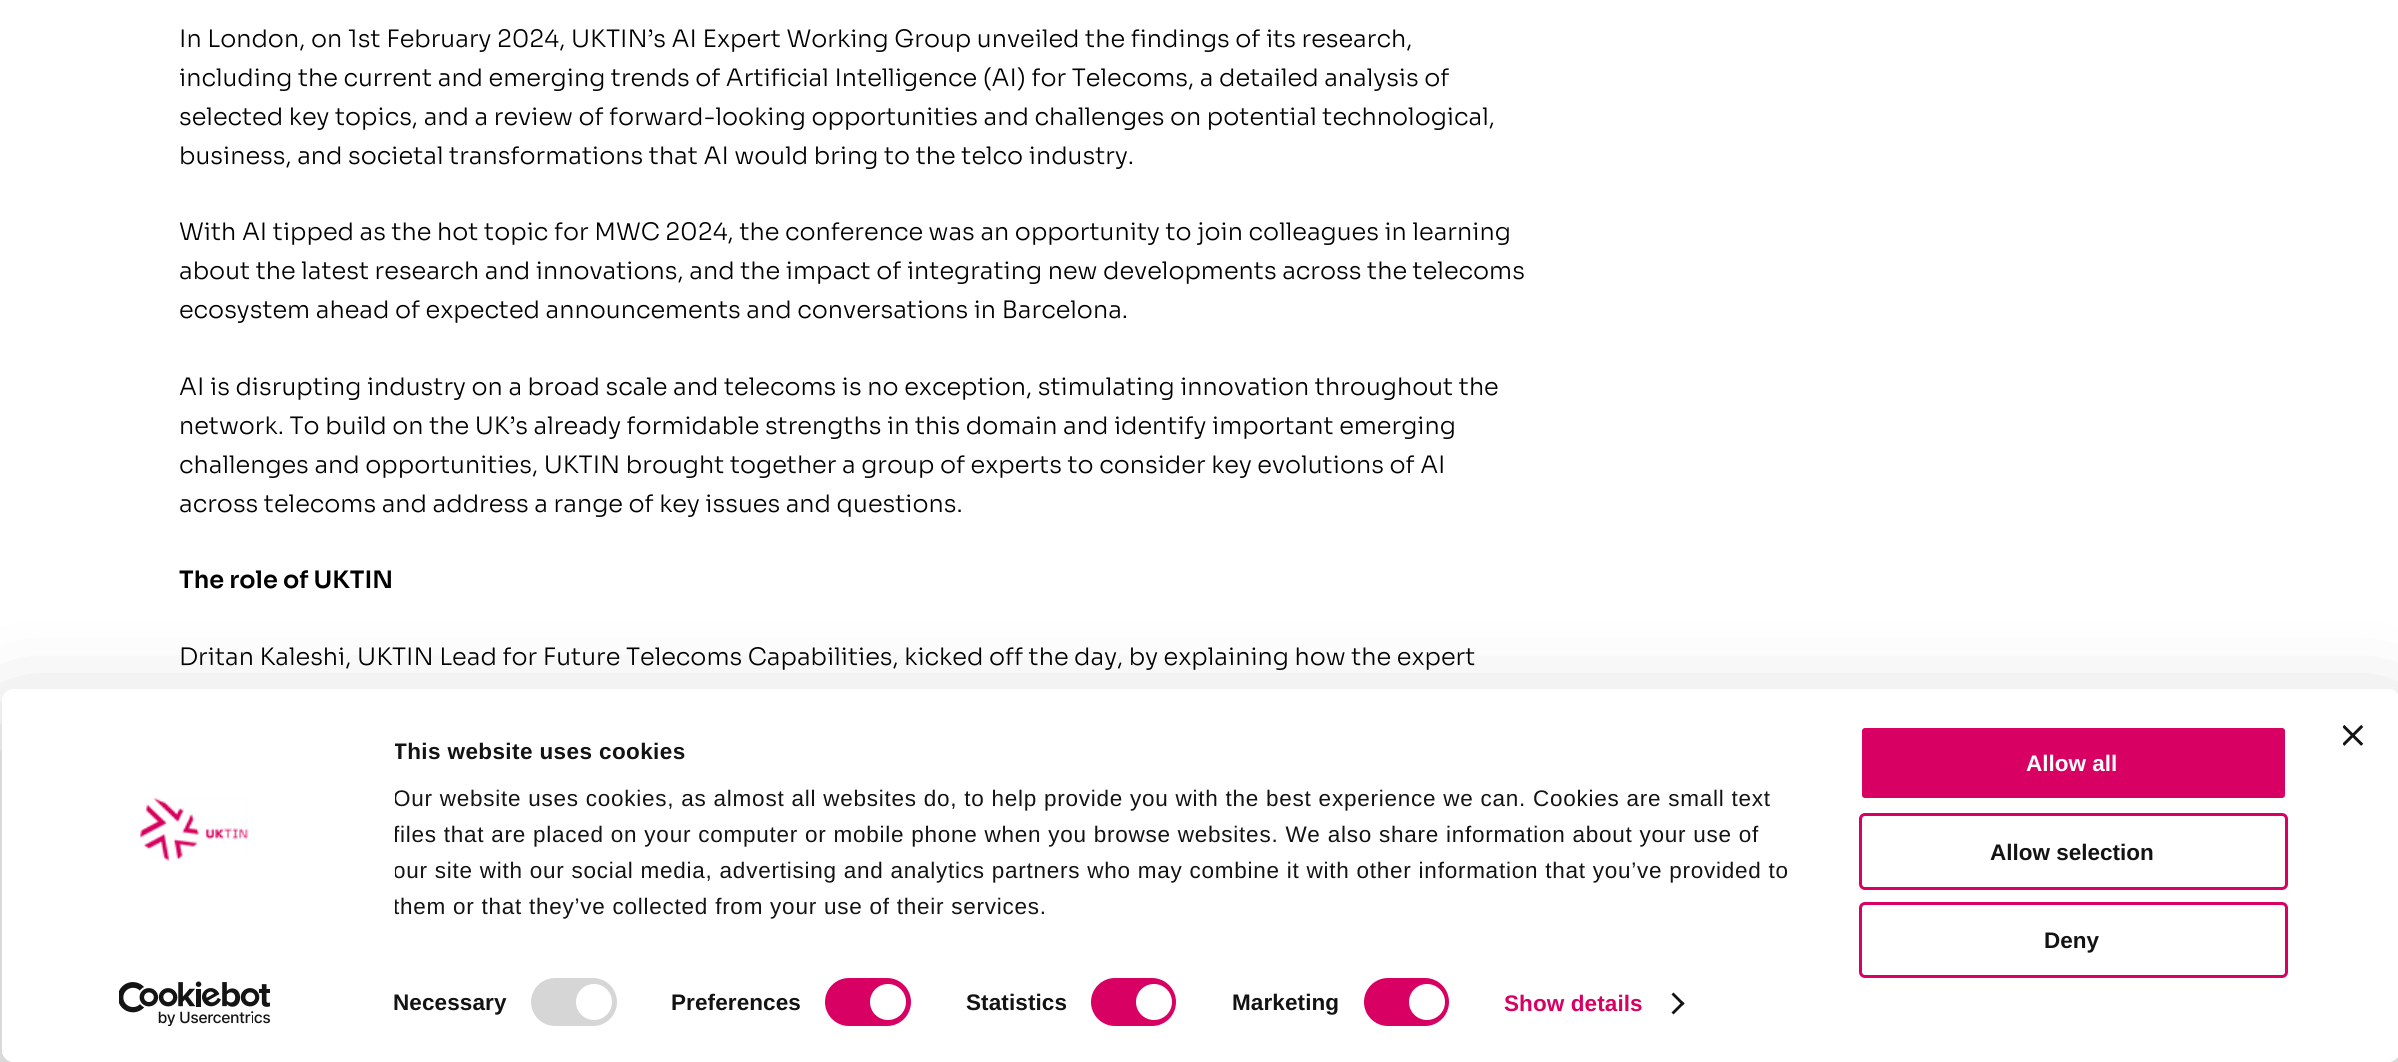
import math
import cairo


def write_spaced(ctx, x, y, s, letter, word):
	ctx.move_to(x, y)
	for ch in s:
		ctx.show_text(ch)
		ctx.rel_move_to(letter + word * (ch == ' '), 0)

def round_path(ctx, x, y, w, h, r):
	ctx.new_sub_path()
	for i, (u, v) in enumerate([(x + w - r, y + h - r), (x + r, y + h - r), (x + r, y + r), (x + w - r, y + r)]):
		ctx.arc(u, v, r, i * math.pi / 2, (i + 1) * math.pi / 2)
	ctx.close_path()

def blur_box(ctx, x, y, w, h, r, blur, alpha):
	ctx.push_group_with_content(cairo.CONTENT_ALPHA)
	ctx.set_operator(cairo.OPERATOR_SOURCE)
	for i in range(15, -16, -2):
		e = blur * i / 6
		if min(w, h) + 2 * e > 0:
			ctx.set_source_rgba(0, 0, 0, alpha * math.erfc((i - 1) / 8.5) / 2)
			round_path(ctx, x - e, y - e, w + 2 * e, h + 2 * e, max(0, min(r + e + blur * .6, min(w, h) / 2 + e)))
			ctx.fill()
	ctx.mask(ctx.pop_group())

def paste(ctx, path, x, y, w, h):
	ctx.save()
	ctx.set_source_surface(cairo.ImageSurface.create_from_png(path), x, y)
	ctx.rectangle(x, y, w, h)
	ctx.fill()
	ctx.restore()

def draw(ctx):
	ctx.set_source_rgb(1, 1, 1)
	ctx.paint()
	ctx.select_font_face('Sora Light')
	ctx.set_font_size(24)
	ctx.set_source_rgb(0, 0, 0)
	for x, y, s in [
		(179, 47, 'In London, on 1st February 2024, UKTIN’s AI Expert Working Group unveiled the findings of its research,'),
		(179, 86, 'including the current and emerging trends of Artificial Intelligence (AI) for Telecoms, a detailed analysis of'),
		(179, 125, 'selected key topics, and a review of forward-looking opportunities and challenges on potential technological,'),
		(179, 164, 'business, and societal transformations that AI would bring to the telco industry.'),
		(179, 240, 'With AI tipped as the hot topic for MWC 2024, the conference was an opportunity to join colleagues in learning'),
		(179, 279, 'about the latest research and innovations, and the impact of integrating new developments across the telecoms'),
		(179, 318, 'ecosystem ahead of expected announcements and conversations in Barcelona.'),
		(179, 395, 'AI is disrupting industry on a broad scale and telecoms is no exception, stimulating innovation throughout the'),
		(179, 434, 'network. To build on the UK’s already formidable strengths in this domain and identify important emerging'),
		(179, 473, 'challenges and opportunities, UKTIN brought together a group of experts to consider key evolutions of AI'),
		(179, 512, 'across telecoms and address a range of key issues and questions.'),
	]:
		ctx.move_to(x, y)
		ctx.show_text(s)
	ctx.select_font_face('Sora SemiBold')
	ctx.move_to(179, 588)
	ctx.show_text('The role of UKTIN')
	ctx.select_font_face('Sora Light')
	ctx.move_to(179, 665)
	ctx.show_text('Dritan Kaleshi, UKTIN Lead for Future Telecoms Capabilities, kicked off the day, by explaining how the expert')
	ctx.save()
	ctx.set_fill_rule(cairo.FILL_RULE_EVEN_ODD)
	ctx.new_path()
	ctx.move_to(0, 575)
	ctx.line_to(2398, 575)
	ctx.line_to(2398, 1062)
	ctx.line_to(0, 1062)
	ctx.close_path()
	ctx.move_to(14, 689)
	ctx.line_to(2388, 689)
	ctx.curve_to(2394.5, 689, 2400, 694.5, 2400, 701)
	ctx.line_to(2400, 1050)
	ctx.curve_to(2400, 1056.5, 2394.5, 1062, 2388, 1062)
	ctx.line_to(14, 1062)
	ctx.curve_to(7.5, 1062, 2, 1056.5, 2, 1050)
	ctx.line_to(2, 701)
	ctx.curve_to(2, 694.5, 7.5, 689, 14, 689)
	ctx.close_path()
	ctx.clip()
	ctx.set_source_rgb(0, 0, 0)
	blur_box(ctx, 2, 734, 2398, 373, 12, 52.5, 0.3)
	ctx.restore()
	ctx.set_source_rgb(1, 1, 1)
	round_path(ctx, 2, 689, 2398, 373, 12)
	ctx.fill()
	paste(ctx, 'media/1.png', 2343, 725, 21, 21)
	paste(ctx, 'media/2.png', 140, 798, 109, 64)
	paste(ctx, 'media/3.png', 119, 981, 151, 45)
	ctx.save()
	ctx.rectangle(395, 734, 1420, 190)
	ctx.clip()
	ctx.select_font_face('Liberation Sans', cairo.FONT_SLANT_NORMAL, cairo.FONT_WEIGHT_BOLD)
	ctx.set_font_size(22.5)
	ctx.set_source_rgb(0.078, 0.078, 0.078)
	write_spaced(ctx, 393, 759, 'This website uses cookies', 0.4, 0)
	ctx.select_font_face('Liberation Sans')
	for x, y, s in [
		(393, 806, 'Our website uses cookies, as almost all websites do, to help provide you with the best experience we can. Cookies are small text'),
		(393, 842, 'files that are placed on your computer or mobile phone when you browse websites. We also share information about your use of'),
		(393, 878, 'our site with our social media, advertising and analytics partners who may combine it with other information that you’ve provided to'),
		(393, 914, 'them or that they’ve collected from your use of their services.'),
	]:
		write_spaced(ctx, x, y, s, 0.75, 0)
	ctx.restore()
	ctx.select_font_face('Liberation Sans', cairo.FONT_SLANT_NORMAL, cairo.FONT_WEIGHT_BOLD)
	ctx.set_font_size(22.5)
	ctx.set_source_rgb(0.078, 0.078, 0.078)
	write_spaced(ctx, 393, 1010, 'Necessary', 0.1, 0)
	ctx.set_source_rgb(0.839, 0.839, 0.839)
	round_path(ctx, 531, 978, 86, 48, 24)
	ctx.fill()
	ctx.set_source_rgb(1, 1, 1)
	ctx.arc(594, 1002, 18, 0, 2 * math.pi)
	ctx.fill()
	ctx.set_source_rgb(0.078, 0.078, 0.078)
	write_spaced(ctx, 671, 1010, 'Preferences', 0.1, 0)
	ctx.set_source_rgb(0.847, 0, 0.384)
	round_path(ctx, 825, 978, 86, 48, 24)
	ctx.fill()
	ctx.set_source_rgb(1, 1, 1)
	ctx.arc(888, 1002, 18, 0, 2 * math.pi)
	ctx.fill()
	ctx.set_source_rgb(0.078, 0.078, 0.078)
	write_spaced(ctx, 966, 1010, 'Statistics', 0.1, 0)
	ctx.set_source_rgb(0.847, 0, 0.384)
	round_path(ctx, 1091, 978, 85, 48, 24)
	ctx.fill()
	ctx.set_source_rgb(1, 1, 1)
	ctx.arc(1154, 1002, 18, 0, 2 * math.pi)
	ctx.fill()
	ctx.set_source_rgb(0.078, 0.078, 0.078)
	write_spaced(ctx, 1232, 1010, 'Marketing', 0.1, 0)
	ctx.set_source_rgb(0.847, 0, 0.384)
	round_path(ctx, 1364, 978, 85, 48, 24)
	ctx.fill()
	ctx.set_source_rgb(1, 1, 1)
	ctx.arc(1427, 1002, 18, 0, 2 * math.pi)
	ctx.fill()
	ctx.set_source_rgb(0.847, 0, 0.384)
	write_spaced(ctx, 1504, 1011, 'Show details', 0.1, 0)
	ctx.set_source_rgb(0.078, 0.078, 0.078)
	ctx.new_path()
	ctx.move_to(1673.5, 992.5)
	ctx.line_to(1684.5, 1003.5)
	ctx.line_to(1682.5, 1005.5)
	ctx.line_to(1671.5, 994.5)
	ctx.close_path()
	ctx.fill()
	ctx.new_path()
	ctx.move_to(1682.5, 1001.5)
	ctx.line_to(1684.5, 1003.5)
	ctx.line_to(1673.5, 1014.5)
	ctx.line_to(1671.5, 1012.5)
	ctx.close_path()
	ctx.fill()
	ctx.set_source_rgb(0.847, 0, 0.384)
	round_path(ctx, 1860.5, 726.5, 426, 73, 4.5)
	ctx.fill_preserve()
	ctx.set_source_rgb(1, 1, 1)
	ctx.set_line_width(3)
	ctx.stroke()
	ctx.move_to(2026, 771)
	ctx.show_text('Allow all')
	round_path(ctx, 1860.5, 814.5, 426, 74, 4.5)
	ctx.set_source_rgb(0.847, 0, 0.384)
	ctx.stroke()
	ctx.set_source_rgb(0.078, 0.078, 0.078)
	ctx.move_to(1990, 860)
	ctx.show_text('Allow selection')
	round_path(ctx, 1860.5, 903.5, 426, 73, 4.5)
	ctx.set_source_rgb(0.847, 0, 0.384)
	ctx.stroke()
	ctx.set_source_rgb(0.078, 0.078, 0.078)
	ctx.move_to(2044, 948)
	ctx.show_text('Deny')


surface = cairo.ImageSurface(cairo.FORMAT_RGB24, 2398, 1062)
ctx = cairo.Context(surface)
options = cairo.FontOptions()
options.set_hint_metrics(cairo.HINT_METRICS_OFF)
options.set_hint_style(cairo.HINT_STYLE_NONE)
ctx.set_font_options(options)
ctx.set_miter_limit(4)
draw(ctx)
surface.write_to_png('image.png')
